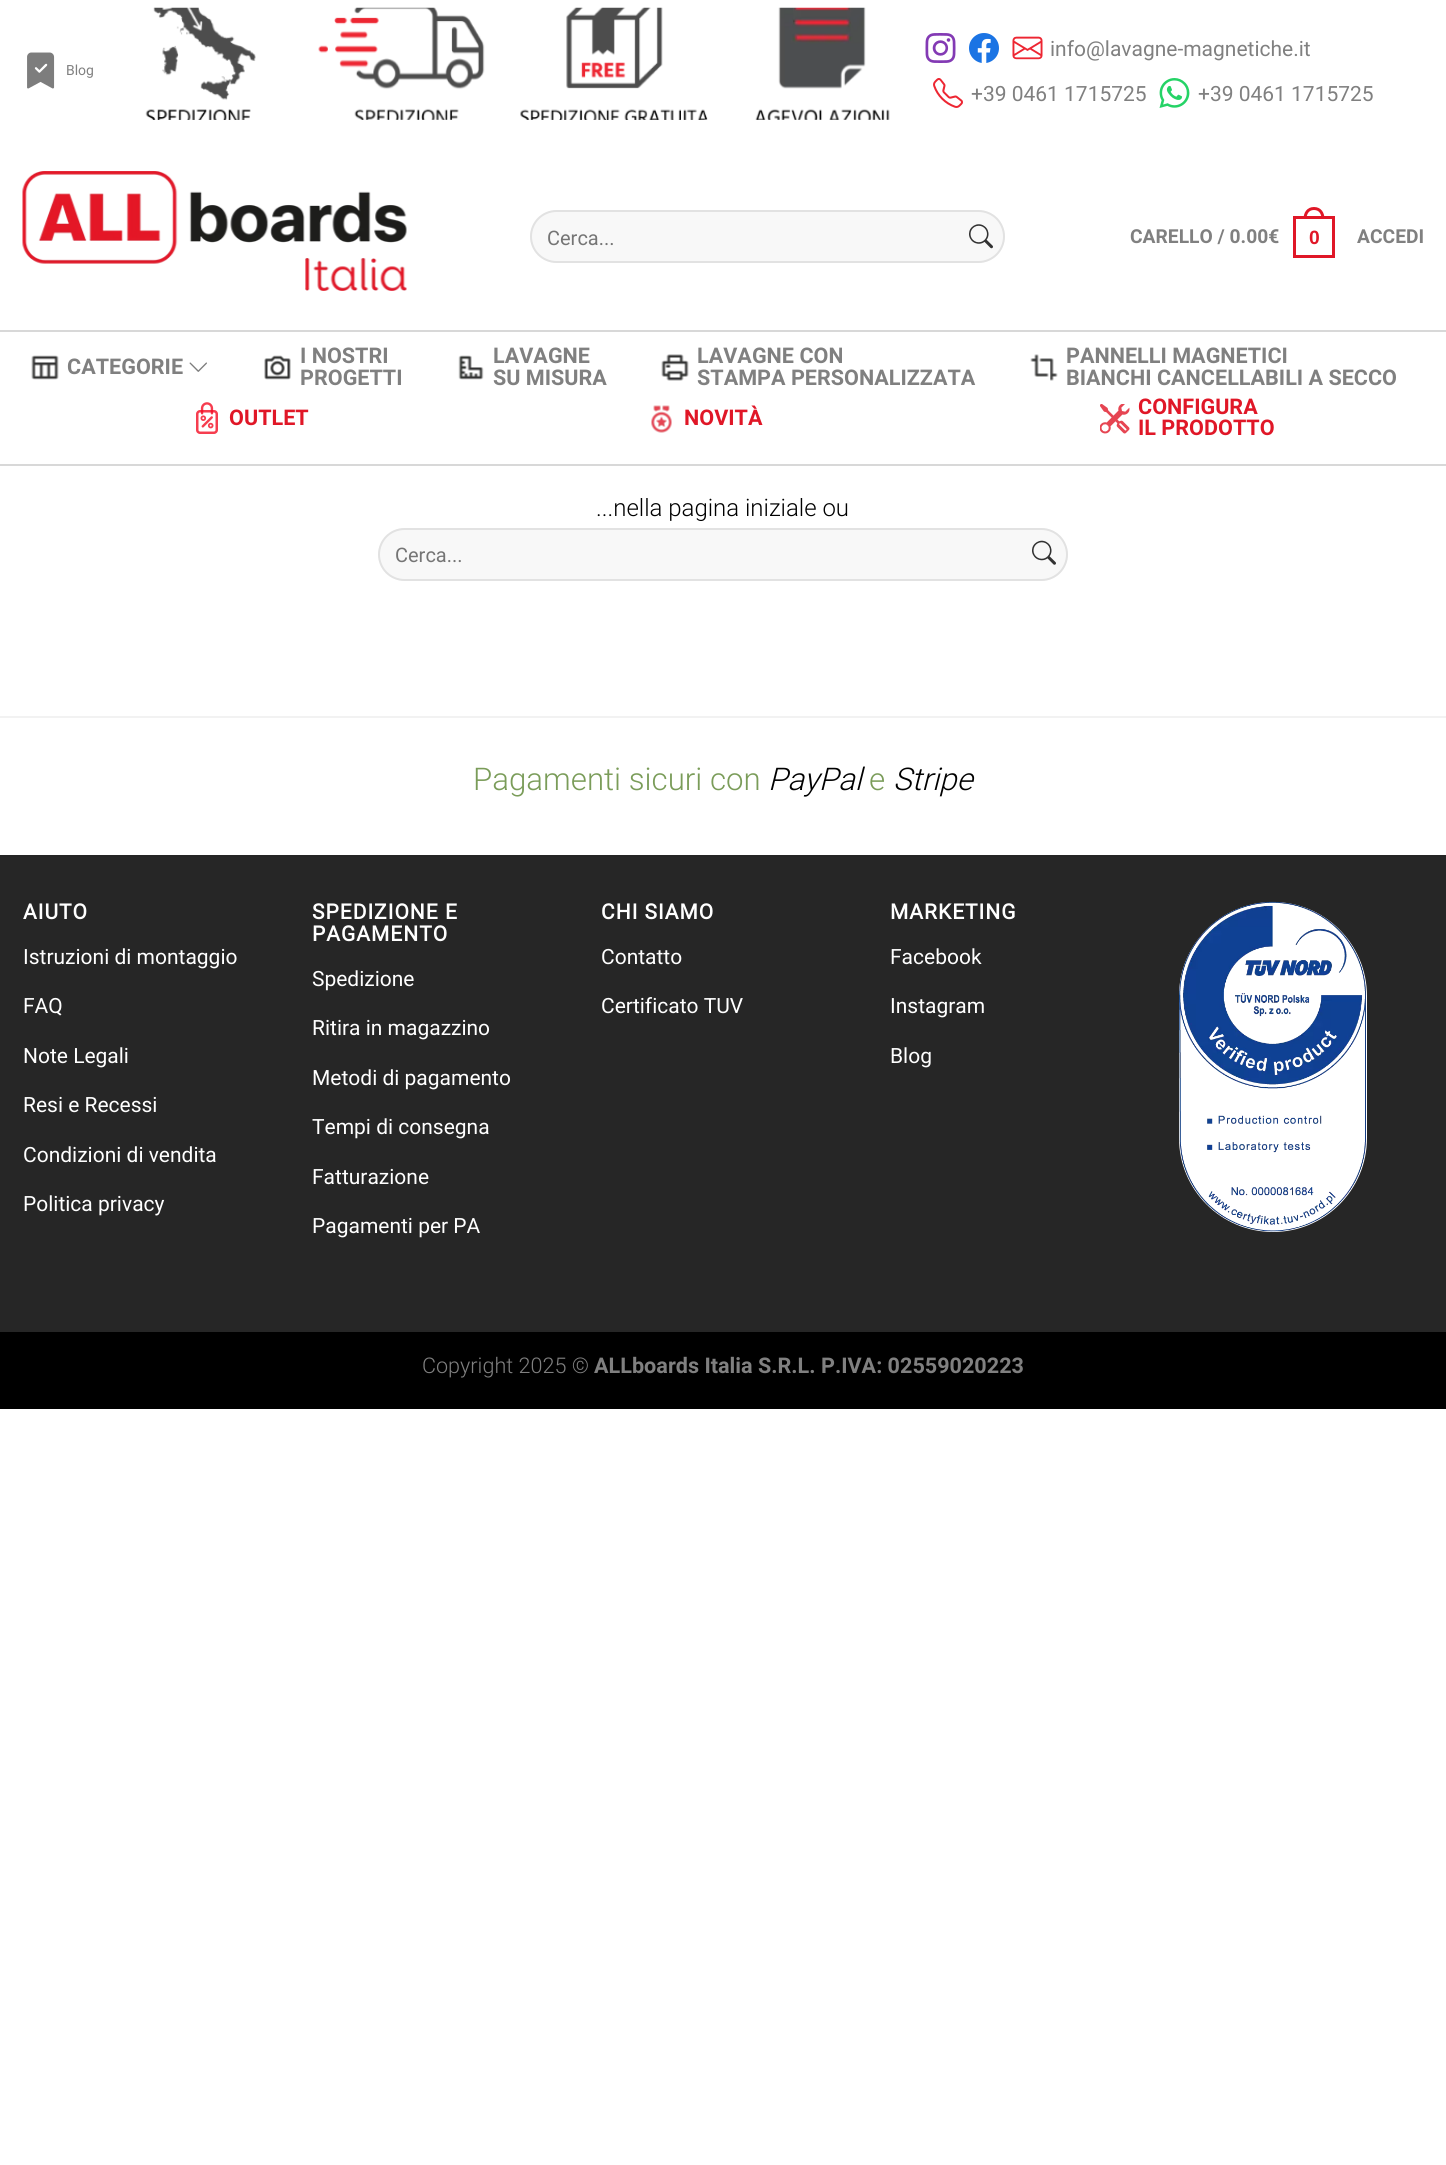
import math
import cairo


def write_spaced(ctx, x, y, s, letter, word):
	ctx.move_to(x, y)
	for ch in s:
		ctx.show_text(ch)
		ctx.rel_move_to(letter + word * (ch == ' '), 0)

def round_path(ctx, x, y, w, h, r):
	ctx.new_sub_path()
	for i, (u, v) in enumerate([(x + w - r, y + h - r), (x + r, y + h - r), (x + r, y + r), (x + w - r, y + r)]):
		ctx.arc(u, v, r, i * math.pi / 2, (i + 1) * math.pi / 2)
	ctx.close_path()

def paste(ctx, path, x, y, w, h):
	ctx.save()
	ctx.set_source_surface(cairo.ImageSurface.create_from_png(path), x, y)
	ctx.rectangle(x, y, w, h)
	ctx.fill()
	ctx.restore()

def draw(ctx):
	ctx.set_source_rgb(1, 1, 1)
	ctx.paint()
	paste(ctx, 'media/1.png', 27, 52, 28, 37)
	ctx.select_font_face('Roboto')
	ctx.set_font_size(14)
	ctx.set_source_rgb(0.502, 0.502, 0.502)
	ctx.move_to(66, 75)
	ctx.show_text('Blog')
	paste(ctx, 'media/2.png', 145, 7, 111, 113)
	paste(ctx, 'media/3.png', 318, 7, 167, 113)
	paste(ctx, 'media/4.png', 520, 7, 188, 113)
	paste(ctx, 'media/5.png', 755, 7, 135, 113)
	paste(ctx, 'media/6.png', 925, 33, 31, 30)
	paste(ctx, 'media/7.png', 969, 33, 30, 30)
	paste(ctx, 'media/8.png', 1012, 36, 31, 24)
	ctx.set_font_size(21)
	ctx.move_to(1050, 56)
	ctx.show_text('info@lavagne-magnetiche.it')
	paste(ctx, 'media/9.png', 933, 78, 30, 30)
	ctx.move_to(971, 101)
	ctx.show_text('+39 0461 1715725')
	paste(ctx, 'media/10.png', 1159, 78, 31, 30)
	ctx.move_to(1198, 101)
	ctx.show_text('+39 0461 1715725')
	paste(ctx, 'media/11.png', 22, 171, 385, 120)
	ctx.set_source_rgb(0.969, 0.969, 0.969)
	round_path(ctx, 530, 210, 475, 53, 26.5)
	ctx.fill()
	round_path(ctx, 531, 211, 473, 51, 25.5)
	ctx.set_source_rgba(0, 0, 0, 0.09)
	ctx.stroke()
	ctx.set_font_size(20)
	ctx.set_source_rgb(0.459, 0.459, 0.459)
	ctx.move_to(547, 245)
	ctx.show_text('Cerca...')
	paste(ctx, 'media/12.png', 969, 224, 24, 25)
	ctx.select_font_face('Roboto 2', cairo.FONT_SLANT_NORMAL, cairo.FONT_WEIGHT_BOLD)
	ctx.set_font_size(19.25)
	ctx.set_source_rgb(0.502, 0.502, 0.502)
	ctx.move_to(1130, 243)
	ctx.show_text('CARELLO / 0.00€')
	ctx.rectangle(1294.5, 217.5, 39, 39)
	ctx.set_source_rgb(0.878, 0.09, 0.153)
	ctx.set_line_width(3)
	ctx.stroke()
	ctx.set_fill_rule(cairo.FILL_RULE_EVEN_ODD)
	ctx.new_path()
	ctx.move_to(1314, 207)
	ctx.curve_to(1321, 207, 1324.5, 212.5, 1324.5, 219)
	ctx.line_to(1303.5, 219)
	ctx.curve_to(1303.5, 212.5, 1307, 207, 1314, 207)
	ctx.close_path()
	ctx.move_to(1314, 210)
	ctx.curve_to(1319.5, 210, 1321.5, 214.5, 1321.5, 219)
	ctx.line_to(1306.5, 219)
	ctx.curve_to(1306.5, 214.5, 1308.5, 210, 1314, 210)
	ctx.close_path()
	ctx.fill()
	ctx.select_font_face('Liberation Sans', cairo.FONT_SLANT_NORMAL, cairo.FONT_WEIGHT_BOLD)
	ctx.move_to(1309, 244)
	ctx.show_text('0')
	ctx.select_font_face('Roboto 2', cairo.FONT_SLANT_NORMAL, cairo.FONT_WEIGHT_BOLD)
	ctx.set_source_rgb(0.502, 0.502, 0.502)
	ctx.move_to(1357, 243)
	ctx.show_text('ACCEDI')
	ctx.set_source_rgb(0.847, 0.847, 0.847)
	ctx.rectangle(0, 330, 1446, 2)
	ctx.fill()
	ctx.rectangle(0, 464, 1446, 2)
	ctx.fill()
	paste(ctx, 'media/13.png', 31, 355, 28, 25)
	ctx.set_font_size(21.6)
	ctx.set_source_rgb(0.502, 0.502, 0.502)
	ctx.move_to(67, 374)
	ctx.show_text('CATEGORIE')
	paste(ctx, 'media/14.png', 189, 362, 18, 10)
	paste(ctx, 'media/15.png', 264, 355, 27, 25)
	ctx.move_to(300, 363)
	ctx.show_text('I NOSTRI')
	ctx.move_to(300, 385)
	ctx.show_text('PROGETTI')
	paste(ctx, 'media/16.png', 458, 355, 26, 25)
	ctx.move_to(493, 363)
	ctx.show_text('LAVAGNE')
	ctx.move_to(493, 385)
	ctx.show_text('SU MISURA')
	paste(ctx, 'media/17.png', 661, 354, 28, 27)
	ctx.move_to(697, 363)
	ctx.show_text('LAVAGNE CON')
	ctx.move_to(697, 385)
	ctx.show_text('STAMPA PERSONALIZZATA')
	paste(ctx, 'media/18.png', 1030, 354, 28, 27)
	ctx.move_to(1066, 363)
	ctx.show_text('PANNELLI MAGNETICI')
	ctx.move_to(1066, 385)
	ctx.show_text('BIANCHI CANCELLABILI A SECCO')
	paste(ctx, 'media/19.png', 196, 402, 22, 32)
	ctx.set_source_rgb(0.878, 0.09, 0.153)
	ctx.move_to(229, 425)
	ctx.show_text('OUTLET')
	paste(ctx, 'media/20.png', 651, 405, 21, 28)
	ctx.move_to(684, 425)
	ctx.show_text('NOVITÀ')
	paste(ctx, 'media/21.png', 1100, 404, 30, 30)
	ctx.move_to(1138, 414)
	ctx.show_text('CONFIGURA')
	ctx.move_to(1138, 435)
	ctx.show_text('IL PRODOTTO')
	ctx.select_font_face('Roboto Light')
	ctx.set_font_size(24)
	ctx.set_source_rgb(0, 0, 0)
	ctx.move_to(596, 516)
	ctx.show_text('...nella pagina iniziale ou')
	ctx.set_source_rgb(0.969, 0.969, 0.969)
	round_path(ctx, 378, 528, 690, 53, 26.5)
	ctx.fill()
	round_path(ctx, 379, 529, 688, 51, 25.5)
	ctx.set_source_rgba(0, 0, 0, 0.09)
	ctx.set_line_width(2)
	ctx.stroke()
	ctx.select_font_face('Roboto')
	ctx.set_font_size(20)
	ctx.set_source_rgb(0.459, 0.459, 0.459)
	ctx.move_to(395, 562)
	ctx.show_text('Cerca...')
	paste(ctx, 'media/22.png', 1032, 540, 24, 25)
	ctx.set_source_rgb(0.949, 0.949, 0.949)
	ctx.rectangle(0, 716, 1446, 2)
	ctx.fill()
	ctx.select_font_face('Roboto Light')
	ctx.set_font_size(31.25)
	ctx.set_source_rgb(0.478, 0.612, 0.349)
	ctx.move_to(473, 790)
	ctx.show_text('Pagamenti sicuri con')
	ctx.select_font_face('Roboto Light', cairo.FONT_SLANT_ITALIC)
	ctx.set_source_rgb(0, 0, 0)
	ctx.move_to(768, 790)
	ctx.show_text('PayPal')
	ctx.select_font_face('Roboto Light')
	ctx.set_source_rgb(0.478, 0.612, 0.349)
	ctx.move_to(869, 790)
	ctx.show_text('e')
	ctx.select_font_face('Roboto Light', cairo.FONT_SLANT_ITALIC)
	ctx.set_source_rgb(0, 0, 0)
	ctx.move_to(893, 790)
	ctx.show_text('Stripe')
	ctx.set_source_rgb(0.149, 0.149, 0.149)
	ctx.rectangle(0, 857, 1446, 475)
	ctx.fill()
	ctx.set_source_rgb(0.141, 0.141, 0.141)
	ctx.rectangle(0, 855, 1446, 2)
	ctx.fill()
	ctx.select_font_face('Roboto', cairo.FONT_SLANT_NORMAL, cairo.FONT_WEIGHT_BOLD)
	ctx.set_font_size(21)
	ctx.set_source_rgb(1, 1, 1)
	write_spaced(ctx, 23, 919, 'AIUTO', 1, 0)
	ctx.select_font_face('Roboto')
	for x, y, s in [
		(23, 964, 'Istruzioni di montaggio'),
		(23, 1013, 'FAQ'),
		(23, 1063, 'Note Legali'),
		(23, 1112, 'Resi e Recessi'),
		(23, 1162, 'Condizioni di vendita'),
		(23, 1211, 'Politica privacy'),
	]:
		ctx.move_to(x, y)
		ctx.show_text(s)
	ctx.select_font_face('Roboto', cairo.FONT_SLANT_NORMAL, cairo.FONT_WEIGHT_BOLD)
	write_spaced(ctx, 312, 919, 'SPEDIZIONE E', 1, 0)
	write_spaced(ctx, 312, 941, 'PAGAMENTO', 1, 0)
	ctx.select_font_face('Roboto')
	for x, y, s in [
		(312, 986, 'Spedizione'),
		(312, 1035, 'Ritira in magazzino'),
		(312, 1085, 'Metodi di pagamento'),
		(312, 1134, 'Tempi di consegna'),
		(312, 1184, 'Fatturazione'),
		(312, 1233, 'Pagamenti per PA'),
	]:
		ctx.move_to(x, y)
		ctx.show_text(s)
	ctx.select_font_face('Roboto', cairo.FONT_SLANT_NORMAL, cairo.FONT_WEIGHT_BOLD)
	write_spaced(ctx, 601, 919, 'CHI SIAMO', 1, 0)
	ctx.select_font_face('Roboto')
	ctx.move_to(601, 964)
	ctx.show_text('Contatto')
	ctx.move_to(601, 1013)
	ctx.show_text('Certificato TUV')
	ctx.select_font_face('Roboto', cairo.FONT_SLANT_NORMAL, cairo.FONT_WEIGHT_BOLD)
	write_spaced(ctx, 890, 919, 'MARKETING', 1, 0)
	ctx.select_font_face('Roboto')
	for x, y, s in [
		(890, 964, 'Facebook'),
		(890, 1013, 'Instagram'),
		(890, 1063, 'Blog'),
	]:
		ctx.move_to(x, y)
		ctx.show_text(s)
	round_path(ctx, 1179, 902, 188, 330, 94)
	ctx.fill()
	paste(ctx, 'media/23.png', 1179, 901, 187, 331)
	ctx.set_source_rgb(0, 0, 0)
	ctx.rectangle(0, 1332, 1446, 77)
	ctx.fill()
	ctx.select_font_face('Roboto Light')
	ctx.set_font_size(21.6)
	ctx.set_source_rgb(0.502, 0.502, 0.502)
	ctx.move_to(422, 1373)
	ctx.show_text('Copyright 2025 ©')
	ctx.select_font_face('Roboto 2', cairo.FONT_SLANT_NORMAL, cairo.FONT_WEIGHT_BOLD)
	ctx.move_to(594, 1373)
	ctx.show_text('ALLboards Italia S.R.L. P.IVA: 02559020223')


surface = cairo.ImageSurface(cairo.FORMAT_RGB24, 1446, 2165)
ctx = cairo.Context(surface)
options = cairo.FontOptions()
options.set_hint_metrics(cairo.HINT_METRICS_OFF)
options.set_hint_style(cairo.HINT_STYLE_NONE)
ctx.set_font_options(options)
ctx.set_miter_limit(4)
draw(ctx)
surface.write_to_png('image.png')
